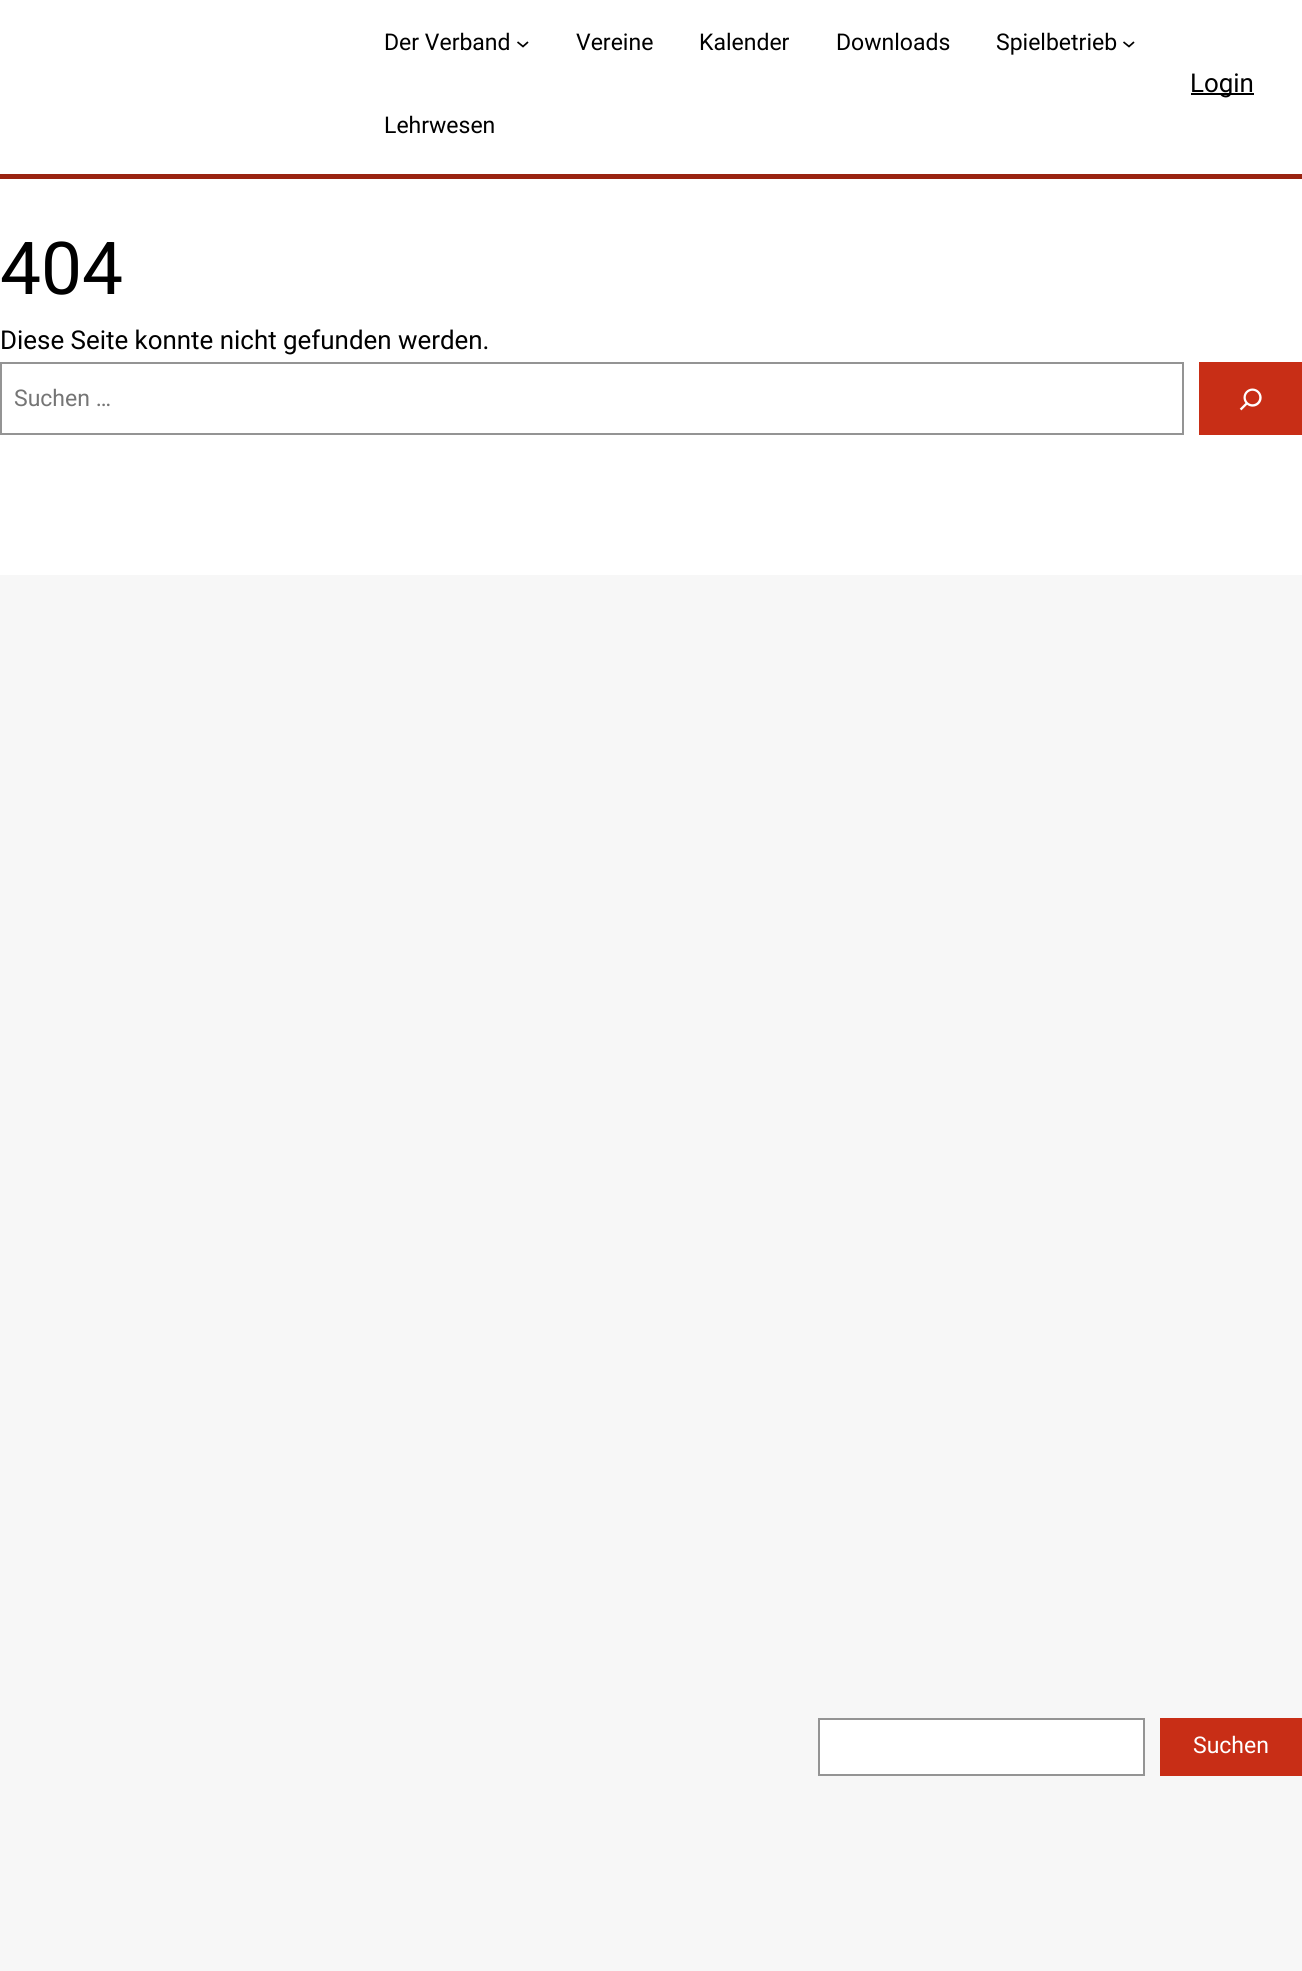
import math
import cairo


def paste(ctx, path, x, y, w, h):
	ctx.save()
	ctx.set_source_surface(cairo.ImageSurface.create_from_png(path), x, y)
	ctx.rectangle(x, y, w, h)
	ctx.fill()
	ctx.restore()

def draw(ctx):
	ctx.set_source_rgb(1, 1, 1)
	ctx.paint()
	ctx.set_source_rgb(0.604, 0.137, 0.067)
	ctx.rectangle(0, 174, 1302, 5)
	ctx.fill()
	ctx.select_font_face('Roboto')
	ctx.set_font_size(23)
	ctx.set_source_rgb(0, 0, 0)
	ctx.move_to(384, 50)
	ctx.show_text('Der Verband')
	ctx.new_path()
	ctx.move_to(517.5, 42)
	ctx.line_to(523, 46.5)
	ctx.line_to(528, 42)
	ctx.set_line_width(1.7)
	ctx.stroke()
	for x, y, s in [
		(576, 50, 'Vereine'),
		(699, 50, 'Kalender'),
		(836, 50, 'Downloads'),
		(996, 50, 'Spielbetrieb'),
	]:
		ctx.move_to(x, y)
		ctx.show_text(s)
	ctx.new_path()
	ctx.move_to(1123.5, 42)
	ctx.line_to(1129, 46.5)
	ctx.line_to(1134, 42)
	ctx.stroke()
	ctx.move_to(384, 133)
	ctx.show_text('Lehrwesen')
	ctx.rectangle(1191, 93, 63, 2)
	ctx.fill()
	ctx.set_font_size(25.9)
	ctx.move_to(1190, 92)
	ctx.show_text('Login')
	ctx.set_font_size(73)
	ctx.move_to(0, 294)
	ctx.show_text('404')
	ctx.set_font_size(25.9)
	ctx.move_to(0, 349)
	ctx.show_text('Diese Seite konnte nicht gefunden werden.')
	ctx.rectangle(1, 363, 1182, 71)
	ctx.set_source_rgb(0.58, 0.58, 0.58)
	ctx.set_line_width(2)
	ctx.stroke()
	ctx.set_font_size(23)
	ctx.set_source_rgb(0.459, 0.459, 0.459)
	ctx.move_to(14, 406)
	ctx.show_text('Suchen …')
	ctx.set_source_rgb(0.784, 0.18, 0.086)
	ctx.rectangle(1199, 362, 103, 73)
	ctx.fill()
	paste(ctx, 'media/1.png', 1239, 388, 23, 23)
	ctx.set_source_rgb(0.965, 0.965, 0.965)
	ctx.rectangle(0, 575, 1302, 1396)
	ctx.fill()
	ctx.set_source_rgb(1, 1, 1)
	ctx.rectangle(819, 1719, 325, 56)
	ctx.fill_preserve()
	ctx.set_source_rgb(0.58, 0.58, 0.58)
	ctx.stroke()
	ctx.set_source_rgb(0.784, 0.18, 0.086)
	ctx.rectangle(1160, 1718, 142, 58)
	ctx.fill()
	ctx.set_source_rgb(1, 1, 1)
	ctx.move_to(1193, 1753)
	ctx.show_text('Suchen')


surface = cairo.ImageSurface(cairo.FORMAT_RGB24, 1302, 1971)
ctx = cairo.Context(surface)
options = cairo.FontOptions()
options.set_hint_metrics(cairo.HINT_METRICS_OFF)
options.set_hint_style(cairo.HINT_STYLE_NONE)
ctx.set_font_options(options)
ctx.set_miter_limit(4)
draw(ctx)
surface.write_to_png('image.png')
